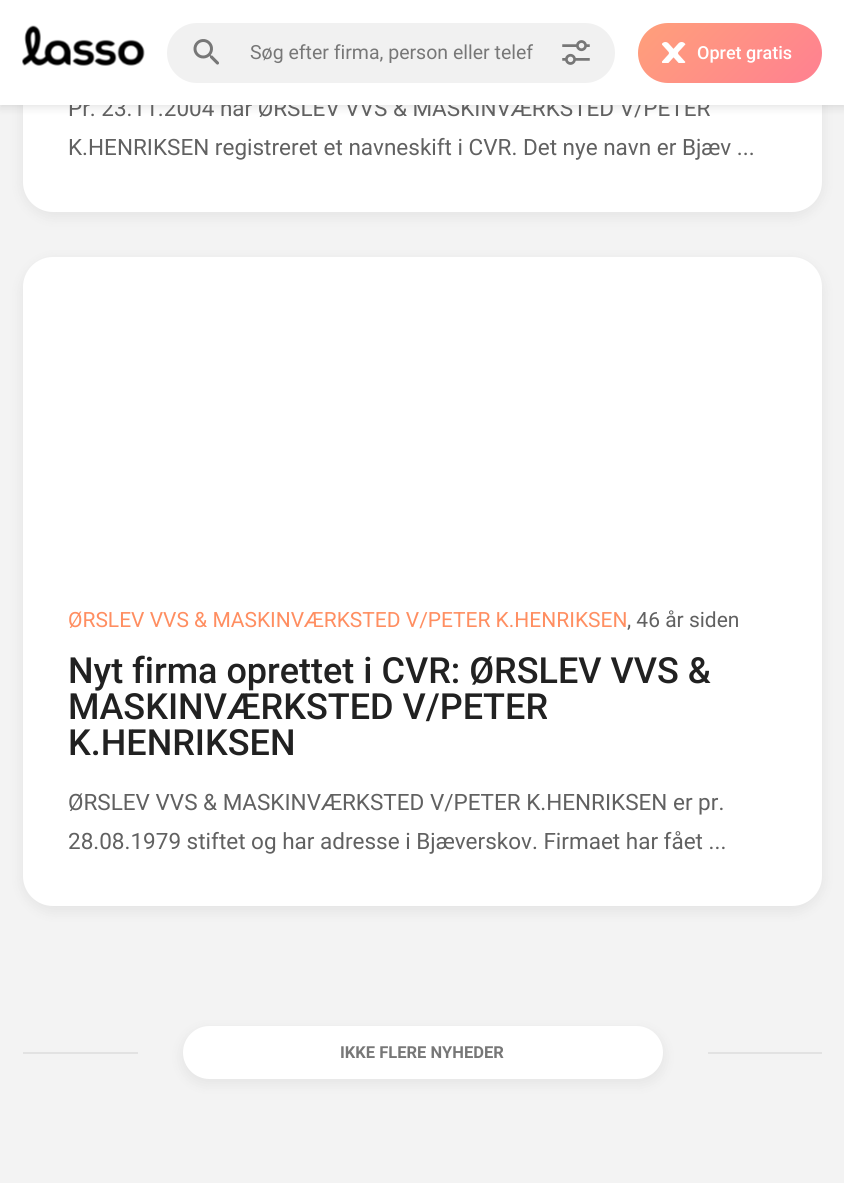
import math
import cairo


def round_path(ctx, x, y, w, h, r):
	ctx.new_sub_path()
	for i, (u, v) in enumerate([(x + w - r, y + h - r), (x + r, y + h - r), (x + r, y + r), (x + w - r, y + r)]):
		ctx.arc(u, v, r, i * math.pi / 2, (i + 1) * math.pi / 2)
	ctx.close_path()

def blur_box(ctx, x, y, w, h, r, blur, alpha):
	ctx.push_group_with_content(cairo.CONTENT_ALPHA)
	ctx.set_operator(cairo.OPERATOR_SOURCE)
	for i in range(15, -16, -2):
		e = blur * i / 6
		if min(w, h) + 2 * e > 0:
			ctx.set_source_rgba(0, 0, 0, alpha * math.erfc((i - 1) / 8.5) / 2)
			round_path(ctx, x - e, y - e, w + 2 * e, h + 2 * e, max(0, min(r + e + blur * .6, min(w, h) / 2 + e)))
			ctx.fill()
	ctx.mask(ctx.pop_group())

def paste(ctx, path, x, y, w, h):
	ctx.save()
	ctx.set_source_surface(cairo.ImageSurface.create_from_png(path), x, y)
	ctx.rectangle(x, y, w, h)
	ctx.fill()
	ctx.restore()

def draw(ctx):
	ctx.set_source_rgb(0.953, 0.953, 0.953)
	ctx.paint()
	ctx.set_source_rgb(0, 0, 0)
	blur_box(ctx, 23, -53, 799, 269, 30, 7.5, 0.07)
	ctx.set_source_rgb(1, 1, 1)
	round_path(ctx, 23, -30, 799, 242, 30)
	ctx.fill()
	ctx.set_source_rgb(0, 0, 0)
	blur_box(ctx, 0, 3, 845, 105, 0, 4, 0.1)
	ctx.select_font_face('Roboto')
	ctx.set_font_size(22.5)
	ctx.set_source_rgb(0.38, 0.38, 0.38)
	ctx.move_to(68, 116)
	ctx.show_text('Pr. 23.11.2004 har ØRSLEV VVS & MASKINVÆRKSTED V/PETER')
	ctx.set_source_rgb(1, 1, 1)
	ctx.rectangle(0, 0, 844, 105)
	ctx.fill()
	paste(ctx, 'media/1.png', 22, 25, 123, 41)
	ctx.set_source_rgb(0.945, 0.945, 0.945)
	round_path(ctx, 167, 23, 448, 60, 30)
	ctx.fill()
	paste(ctx, 'media/2.png', 193, 39, 26, 26)
	ctx.set_font_size(19.5)
	ctx.set_source_rgb(0.467, 0.467, 0.467)
	ctx.move_to(250, 59)
	ctx.show_text('Søg efter firma, person eller telef')
	paste(ctx, 'media/3.png', 562, 40, 28, 25)
	gradient = cairo.LinearGradient(791, 114, 669, -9)
	gradient.add_color_stop_rgba(0, 1, 0.502, 0.569, 1)
	gradient.add_color_stop_rgba(1, 1, 0.627, 0.478, 1)
	ctx.set_source(gradient)
	round_path(ctx, 638, 23, 184, 60, 30)
	ctx.fill()
	paste(ctx, 'media/4.png', 662, 42, 24, 21)
	ctx.select_font_face('Roboto Medium')
	ctx.set_font_size(18)
	ctx.set_source_rgb(1, 1, 1)
	ctx.move_to(697, 59)
	ctx.show_text('Opret gratis')
	ctx.select_font_face('Roboto')
	ctx.set_font_size(22.5)
	ctx.set_source_rgb(0.38, 0.38, 0.38)
	ctx.move_to(68, 155)
	ctx.show_text('K.HENRIKSEN registreret et navneskift i CVR. Det nye navn er Bjæv ...')
	ctx.set_source_rgb(0, 0, 0)
	blur_box(ctx, 23, 261, 799, 650, 30, 7.5, 0.07)
	ctx.set_source_rgb(1, 1, 1)
	round_path(ctx, 23, 257, 799, 649, 30)
	ctx.fill()
	ctx.set_font_size(21)
	ctx.set_source_rgb(1, 0.557, 0.38)
	ctx.move_to(68, 627)
	ctx.show_text('ØRSLEV VVS & MASKINVÆRKSTED V/PETER K.HENRIKSEN')
	ctx.set_source_rgb(0.38, 0.38, 0.38)
	ctx.move_to(627, 627)
	ctx.show_text(', 46 år siden')
	ctx.select_font_face('Roboto Medium')
	ctx.set_font_size(36)
	ctx.set_source_rgb(0.129, 0.129, 0.129)
	for x, y, s in [
		(68, 683, 'Nyt firma oprettet i CVR: ØRSLEV VVS &'),
		(68, 719, 'MASKINVÆRKSTED V/PETER'),
		(68, 755, 'K.HENRIKSEN'),
	]:
		ctx.move_to(x, y)
		ctx.show_text(s)
	ctx.select_font_face('Roboto')
	ctx.set_font_size(22.5)
	ctx.set_source_rgb(0.38, 0.38, 0.38)
	ctx.move_to(68, 810)
	ctx.show_text('ØRSLEV VVS & MASKINVÆRKSTED V/PETER K.HENRIKSEN er pr.')
	ctx.move_to(68, 849)
	ctx.show_text('28.08.1979 stiftet og har adresse i Bjæverskov. Firmaet har fået ...')
	ctx.set_source_rgb(0.886, 0.886, 0.886)
	ctx.rectangle(23, 1052, 115, 2)
	ctx.fill()
	ctx.set_source_rgb(0, 0, 0)
	blur_box(ctx, 183, 1031, 480, 52, 26, 7.5, 0.07)
	ctx.set_source_rgb(1, 1, 1)
	round_path(ctx, 183, 1026, 480, 53, 26.5)
	ctx.fill()
	ctx.select_font_face('Roboto', cairo.FONT_SLANT_NORMAL, cairo.FONT_WEIGHT_BOLD)
	ctx.set_font_size(16.5)
	ctx.set_source_rgb(0.467, 0.467, 0.467)
	ctx.move_to(340, 1058)
	ctx.show_text('IKKE FLERE NYHEDER')
	ctx.set_source_rgb(0.886, 0.886, 0.886)
	ctx.rectangle(708, 1052, 114, 2)
	ctx.fill()


surface = cairo.ImageSurface(cairo.FORMAT_RGB24, 844, 1183)
ctx = cairo.Context(surface)
options = cairo.FontOptions()
options.set_hint_metrics(cairo.HINT_METRICS_OFF)
options.set_hint_style(cairo.HINT_STYLE_NONE)
ctx.set_font_options(options)
ctx.set_miter_limit(4)
draw(ctx)
surface.write_to_png('image.png')
